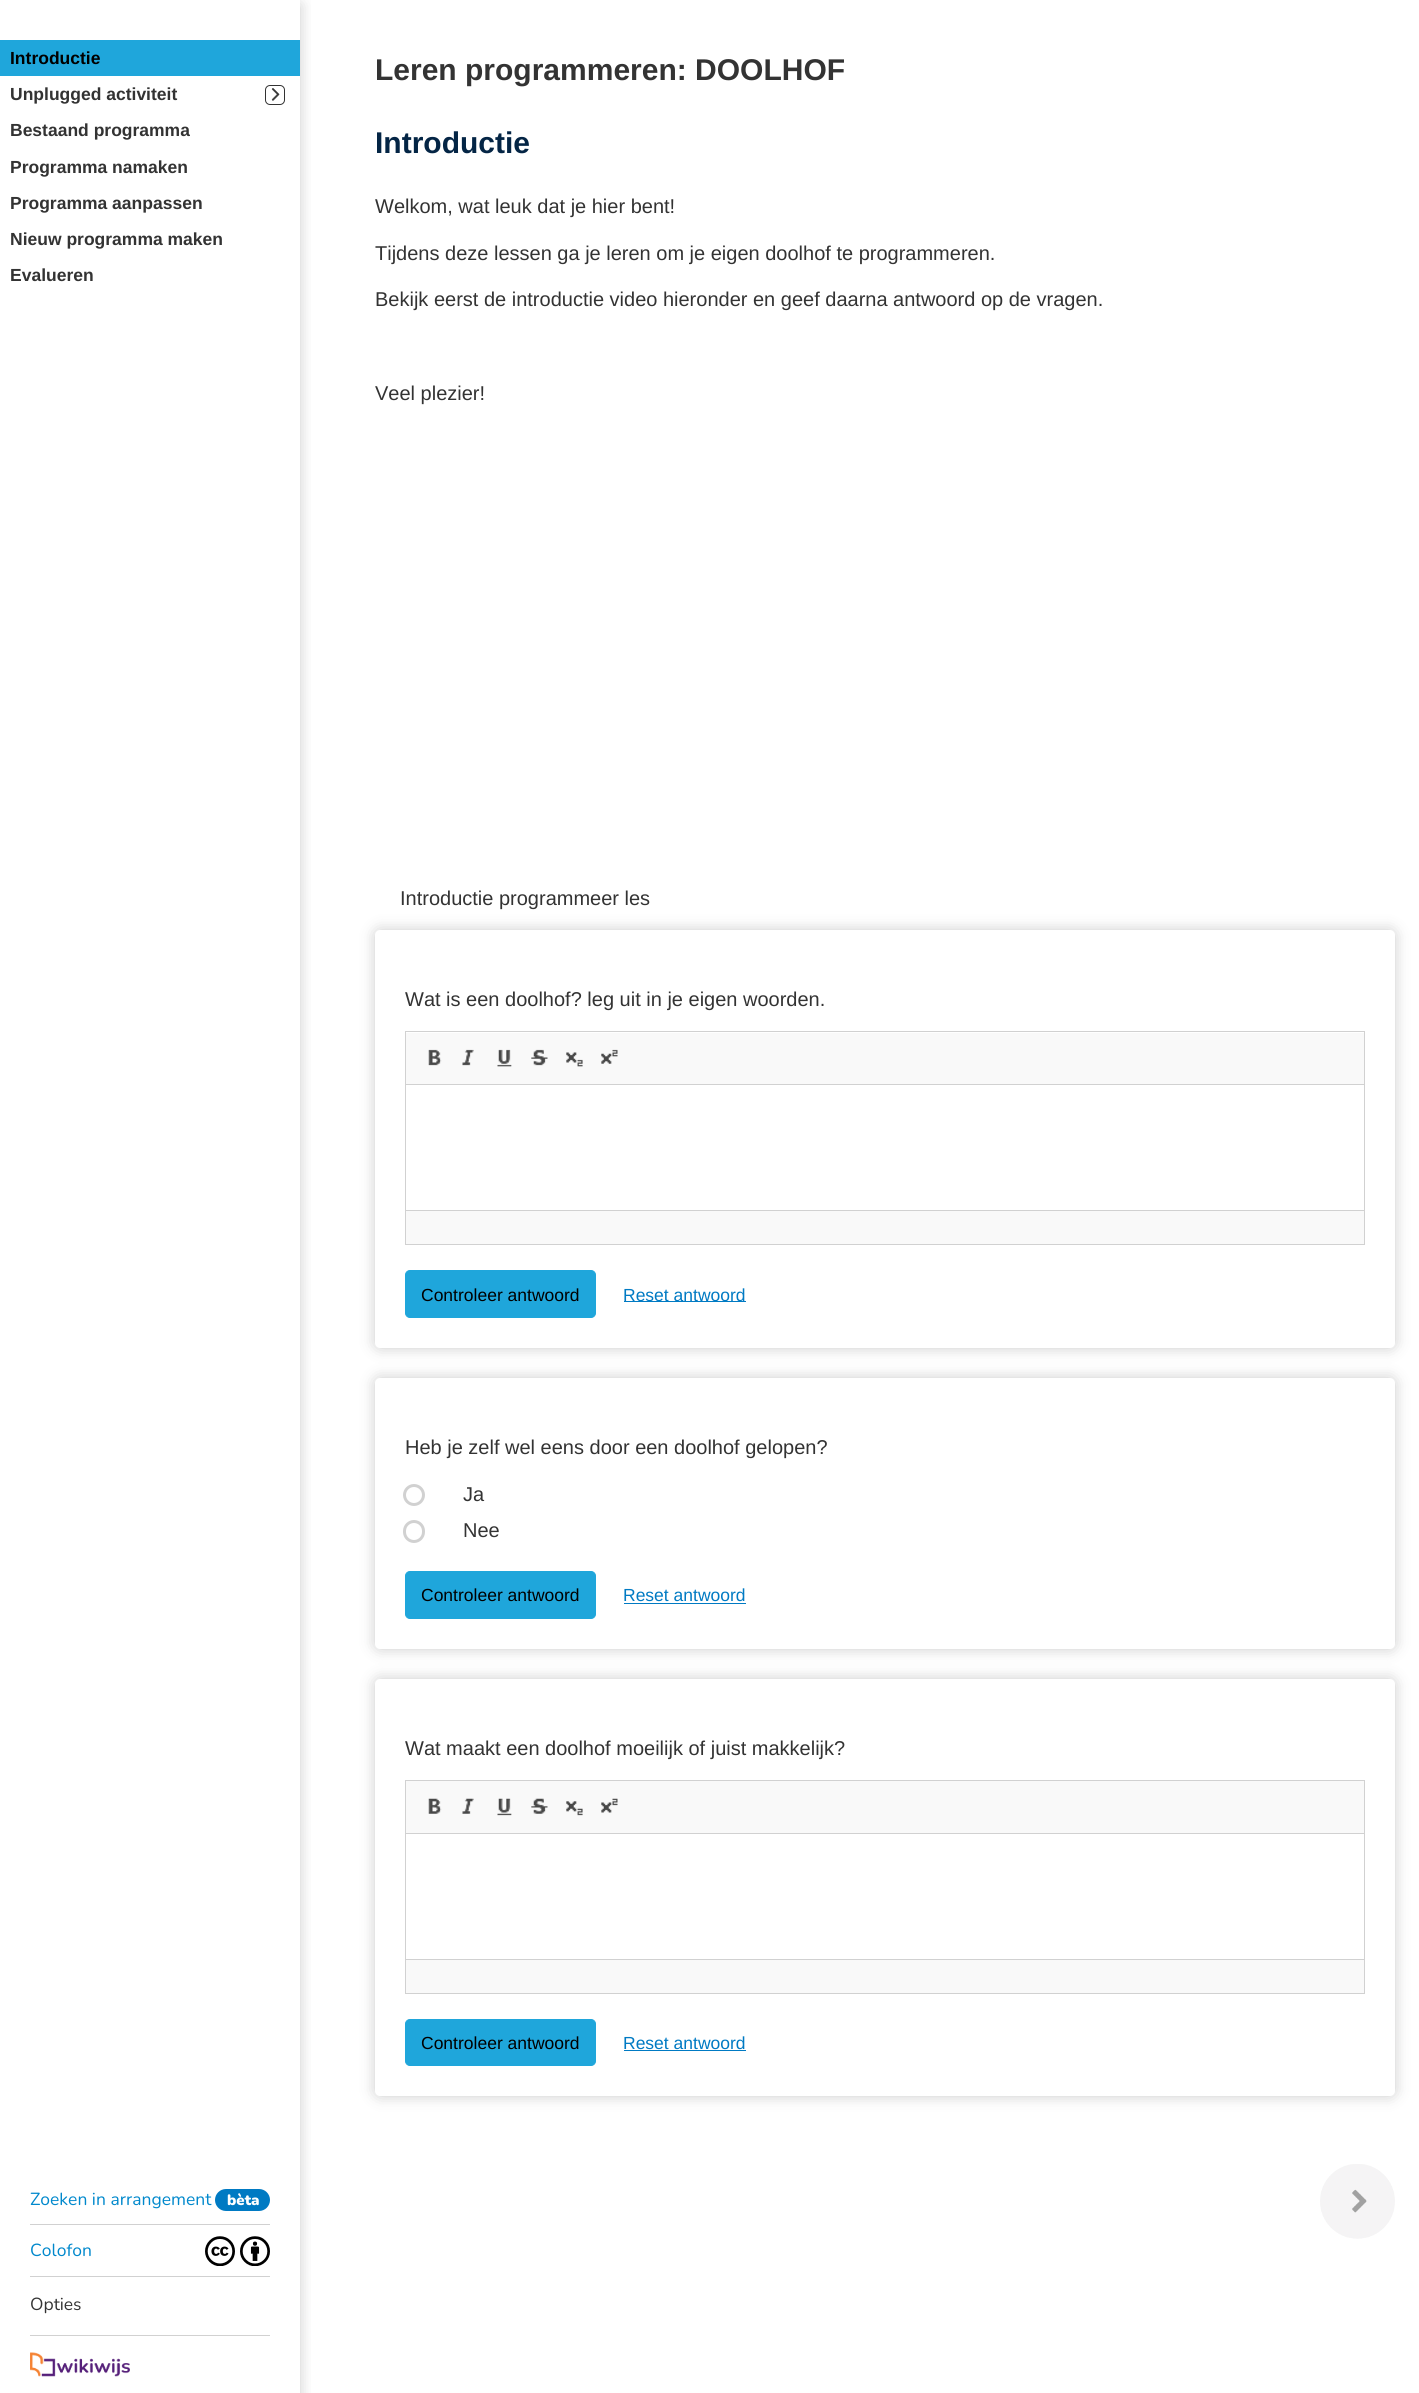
import math
import cairo


def round_path(ctx, x, y, w, h, r):
	ctx.new_sub_path()
	for i, (u, v) in enumerate([(x + w - r, y + h - r), (x + r, y + h - r), (x + r, y + r), (x + w - r, y + r)]):
		ctx.arc(u, v, r, i * math.pi / 2, (i + 1) * math.pi / 2)
	ctx.close_path()

def blur_box(ctx, x, y, w, h, r, blur, alpha):
	ctx.push_group_with_content(cairo.CONTENT_ALPHA)
	ctx.set_operator(cairo.OPERATOR_SOURCE)
	for i in range(15, -16, -2):
		e = blur * i / 6
		if min(w, h) + 2 * e > 0:
			ctx.set_source_rgba(0, 0, 0, alpha * math.erfc((i - 1) / 8.5) / 2)
			round_path(ctx, x - e, y - e, w + 2 * e, h + 2 * e, max(0, min(r + e + blur * .6, min(w, h) / 2 + e)))
			ctx.fill()
	ctx.mask(ctx.pop_group())

def paste(ctx, path, x, y, w, h):
	ctx.save()
	ctx.set_source_surface(cairo.ImageSurface.create_from_png(path), x, y)
	ctx.rectangle(x, y, w, h)
	ctx.fill()
	ctx.restore()

def draw(ctx):
	ctx.set_source_rgb(1, 1, 1)
	ctx.paint()
	ctx.save()
	ctx.rectangle(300, 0, 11, 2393)
	ctx.clip()
	ctx.set_source_rgb(0.2, 0.2, 0.2)
	blur_box(ctx, 0, 5, 300, 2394, 0, 7.5, 0.25)
	ctx.restore()
	ctx.set_source_rgb(0.122, 0.651, 0.859)
	ctx.rectangle(0, 40, 300, 36)
	ctx.fill()
	ctx.select_font_face('Liberation Sans', cairo.FONT_SLANT_NORMAL, cairo.FONT_WEIGHT_BOLD)
	ctx.set_font_size(17.5)
	ctx.set_source_rgb(0, 0, 0)
	ctx.move_to(10, 64)
	ctx.show_text('Introductie')
	ctx.set_source_rgb(0.2, 0.2, 0.2)
	ctx.move_to(10, 100)
	ctx.show_text('Unplugged activiteit')
	round_path(ctx, 265.5, 85.5, 19, 19, 4.5)
	ctx.set_line_width(1)
	ctx.stroke()
	paste(ctx, 'media/1.png', 271, 88, 9, 13)
	for x, y, s in [
		(10, 136, 'Bestaand programma'),
		(10, 173, 'Programma namaken'),
		(10, 209, 'Programma aanpassen'),
		(10, 245, 'Nieuw programma maken'),
		(10, 281, 'Evalueren'),
	]:
		ctx.move_to(x, y)
		ctx.show_text(s)
	ctx.set_source_rgb(0.82, 0.82, 0.82)
	ctx.rectangle(30, 2224, 240, 1)
	ctx.fill()
	ctx.select_font_face('Nunito')
	ctx.set_source_rgb(0, 0.533, 0.8)
	ctx.move_to(30, 2205)
	ctx.show_text('Zoeken in arrangement')
	ctx.set_source_rgb(0, 0.478, 0.765)
	round_path(ctx, 215, 2189, 55, 22, 11)
	ctx.fill()
	ctx.select_font_face('Nunito Black')
	ctx.set_font_size(15)
	ctx.set_source_rgb(1, 1, 1)
	ctx.move_to(227, 2205)
	ctx.show_text('bèta')
	ctx.set_source_rgb(0.82, 0.82, 0.82)
	ctx.rectangle(30, 2276, 240, 1)
	ctx.fill()
	ctx.select_font_face('Nunito')
	ctx.set_font_size(17.5)
	ctx.set_source_rgb(0, 0.533, 0.8)
	ctx.move_to(30, 2256)
	ctx.show_text('Colofon')
	paste(ctx, 'media/2.png', 205, 2236, 30, 30)
	paste(ctx, 'media/3.png', 240, 2236, 30, 30)
	ctx.set_source_rgb(0.82, 0.82, 0.82)
	ctx.rectangle(30, 2335, 240, 1)
	ctx.fill()
	ctx.set_source_rgb(0.2, 0.2, 0.2)
	ctx.move_to(30, 2310)
	ctx.show_text('Opties')
	paste(ctx, 'media/4.png', 30, 2352, 100, 25)
	ctx.select_font_face('Liberation Sans', cairo.FONT_SLANT_NORMAL, cairo.FONT_WEIGHT_BOLD)
	ctx.set_font_size(30)
	ctx.move_to(375, 80)
	ctx.show_text('Leren programmeren: DOOLHOF')
	ctx.set_source_rgb(0.016, 0.145, 0.271)
	ctx.move_to(375, 153)
	ctx.show_text('Introductie')
	ctx.select_font_face('Liberation Sans')
	ctx.set_font_size(20)
	ctx.set_source_rgb(0.2, 0.2, 0.2)
	for x, y, s in [
		(375, 213, 'Welkom, wat leuk dat je hier bent!'),
		(375, 260, 'Tijdens deze lessen ga je leren om je eigen doolhof te programmeren.'),
		(375, 306, 'Bekijk eerst de introductie video hieronder en geef daarna antwoord op de vragen.'),
		(375, 400, 'Veel plezier!'),
	]:
		ctx.move_to(x, y)
		ctx.show_text(s)
	ctx.set_source_rgb(0.2, 0.2, 0.2)
	blur_box(ctx, 375, 930, 1020, 418, 5, 7.5, 0.25)
	ctx.set_source_rgb(0.2, 0.2, 0.2)
	ctx.move_to(400, 905)
	ctx.show_text('Introductie programmeer les')
	ctx.set_source_rgb(1, 1, 1)
	round_path(ctx, 375, 930, 1020, 418, 5)
	ctx.fill()
	ctx.set_source_rgb(0.2, 0.2, 0.2)
	ctx.move_to(405, 1006)
	ctx.show_text('Wat is een doolhof? leg uit in je eigen woorden.')
	ctx.rectangle(405.5, 1031.5, 959, 213)
	ctx.set_source_rgb(0.82, 0.82, 0.82)
	ctx.stroke()
	ctx.set_source_rgb(0.973, 0.973, 0.973)
	ctx.rectangle(406, 1033, 958, 51)
	ctx.fill()
	ctx.set_source_rgb(0.82, 0.82, 0.82)
	ctx.rectangle(406, 1084, 958, 1)
	ctx.fill()
	paste(ctx, 'media/5.png', 428, 1049, 14, 17)
	paste(ctx, 'media/6.png', 462, 1049, 12, 17)
	paste(ctx, 'media/7.png', 497, 1049, 15, 18)
	paste(ctx, 'media/8.png', 531, 1049, 17, 17)
	paste(ctx, 'media/9.png', 566, 1052, 17, 15)
	paste(ctx, 'media/10.png', 601, 1049, 17, 15)
	ctx.set_source_rgb(0.973, 0.973, 0.973)
	ctx.rectangle(406, 1211, 958, 33)
	ctx.fill()
	ctx.set_source_rgb(0.82, 0.82, 0.82)
	ctx.rectangle(406, 1210, 958, 1)
	ctx.fill()
	ctx.set_source_rgb(0.122, 0.651, 0.859)
	round_path(ctx, 405.5, 1270.5, 190, 47, 4.5)
	ctx.fill_preserve()
	ctx.stroke()
	ctx.set_font_size(17.5)
	ctx.set_source_rgb(0, 0, 0)
	ctx.move_to(421, 1301)
	ctx.show_text('Controleer antwoord')
	ctx.set_source_rgb(0, 0.478, 0.765)
	ctx.rectangle(624, 1301, 122, 1)
	ctx.fill()
	ctx.move_to(623, 1301)
	ctx.show_text('Reset antwoord')
	ctx.set_source_rgb(0.2, 0.2, 0.2)
	blur_box(ctx, 375, 1378, 1020, 271, 5, 7.5, 0.25)
	ctx.set_source_rgb(1, 1, 1)
	round_path(ctx, 375, 1378, 1020, 271, 5)
	ctx.fill()
	ctx.set_font_size(20)
	ctx.set_source_rgb(0.2, 0.2, 0.2)
	ctx.move_to(405, 1454)
	ctx.show_text('Heb je zelf wel eens door een doolhof gelopen?')
	ctx.new_path()
	ctx.arc(414, 1495, 9.5, 0, 2 * math.pi)
	ctx.set_source_rgb(0.82, 0.82, 0.82)
	ctx.set_line_width(3)
	ctx.stroke()
	ctx.set_source_rgb(0.2, 0.2, 0.2)
	ctx.move_to(463, 1501)
	ctx.show_text('Ja')
	round_path(ctx, 404.5, 1521.5, 19, 20, 9.5)
	ctx.set_source_rgb(0.82, 0.82, 0.82)
	ctx.stroke()
	ctx.set_source_rgb(0.2, 0.2, 0.2)
	ctx.move_to(463, 1537)
	ctx.show_text('Nee')
	ctx.set_source_rgb(0.122, 0.651, 0.859)
	round_path(ctx, 405.5, 1571.5, 190, 47, 4.5)
	ctx.fill_preserve()
	ctx.set_line_width(1)
	ctx.stroke()
	ctx.set_font_size(17.5)
	ctx.set_source_rgb(0, 0, 0)
	ctx.move_to(421, 1601)
	ctx.show_text('Controleer antwoord')
	ctx.set_source_rgb(0, 0.478, 0.765)
	ctx.move_to(623, 1601)
	ctx.show_text('Reset antwoord')
	ctx.rectangle(624, 1603, 122, 1)
	ctx.fill()
	ctx.set_source_rgb(0.2, 0.2, 0.2)
	blur_box(ctx, 375, 1679, 1020, 417, 5, 7.5, 0.25)
	ctx.set_source_rgb(1, 1, 1)
	round_path(ctx, 375, 1679, 1020, 417, 5)
	ctx.fill()
	ctx.set_font_size(20)
	ctx.set_source_rgb(0.2, 0.2, 0.2)
	ctx.move_to(405, 1755)
	ctx.show_text('Wat maakt een doolhof moeilijk of juist makkelijk?')
	ctx.rectangle(405.5, 1780.5, 959, 213)
	ctx.set_source_rgb(0.82, 0.82, 0.82)
	ctx.stroke()
	ctx.set_source_rgb(0.973, 0.973, 0.973)
	ctx.rectangle(406, 1781, 958, 52)
	ctx.fill()
	ctx.set_source_rgb(0.82, 0.82, 0.82)
	ctx.rectangle(406, 1833, 958, 1)
	ctx.fill()
	paste(ctx, 'media/11.png', 428, 1798, 14, 16)
	paste(ctx, 'media/12.png', 462, 1798, 12, 16)
	paste(ctx, 'media/13.png', 497, 1798, 15, 18)
	paste(ctx, 'media/14.png', 531, 1798, 17, 16)
	paste(ctx, 'media/15.png', 566, 1801, 17, 15)
	paste(ctx, 'media/16.png', 601, 1798, 17, 15)
	ctx.set_source_rgb(0.973, 0.973, 0.973)
	ctx.rectangle(406, 1960, 958, 33)
	ctx.fill()
	ctx.set_source_rgb(0.82, 0.82, 0.82)
	ctx.rectangle(406, 1959, 958, 1)
	ctx.fill()
	ctx.set_source_rgb(0.122, 0.651, 0.859)
	round_path(ctx, 405.5, 2019.5, 190, 46, 4.5)
	ctx.fill_preserve()
	ctx.stroke()
	ctx.set_font_size(17.5)
	ctx.set_source_rgb(0, 0, 0)
	ctx.move_to(421, 2049)
	ctx.show_text('Controleer antwoord')
	ctx.set_source_rgb(0, 0.478, 0.765)
	ctx.move_to(623, 2049)
	ctx.show_text('Reset antwoord')
	ctx.rectangle(624, 2050, 122, 1)
	ctx.fill()
	paste(ctx, 'media/17.png', 1320, 2164, 75, 75)


surface = cairo.ImageSurface(cairo.FORMAT_RGB24, 1419, 2393)
ctx = cairo.Context(surface)
options = cairo.FontOptions()
options.set_hint_metrics(cairo.HINT_METRICS_OFF)
options.set_hint_style(cairo.HINT_STYLE_NONE)
ctx.set_font_options(options)
ctx.set_miter_limit(4)
draw(ctx)
surface.write_to_png('image.png')
